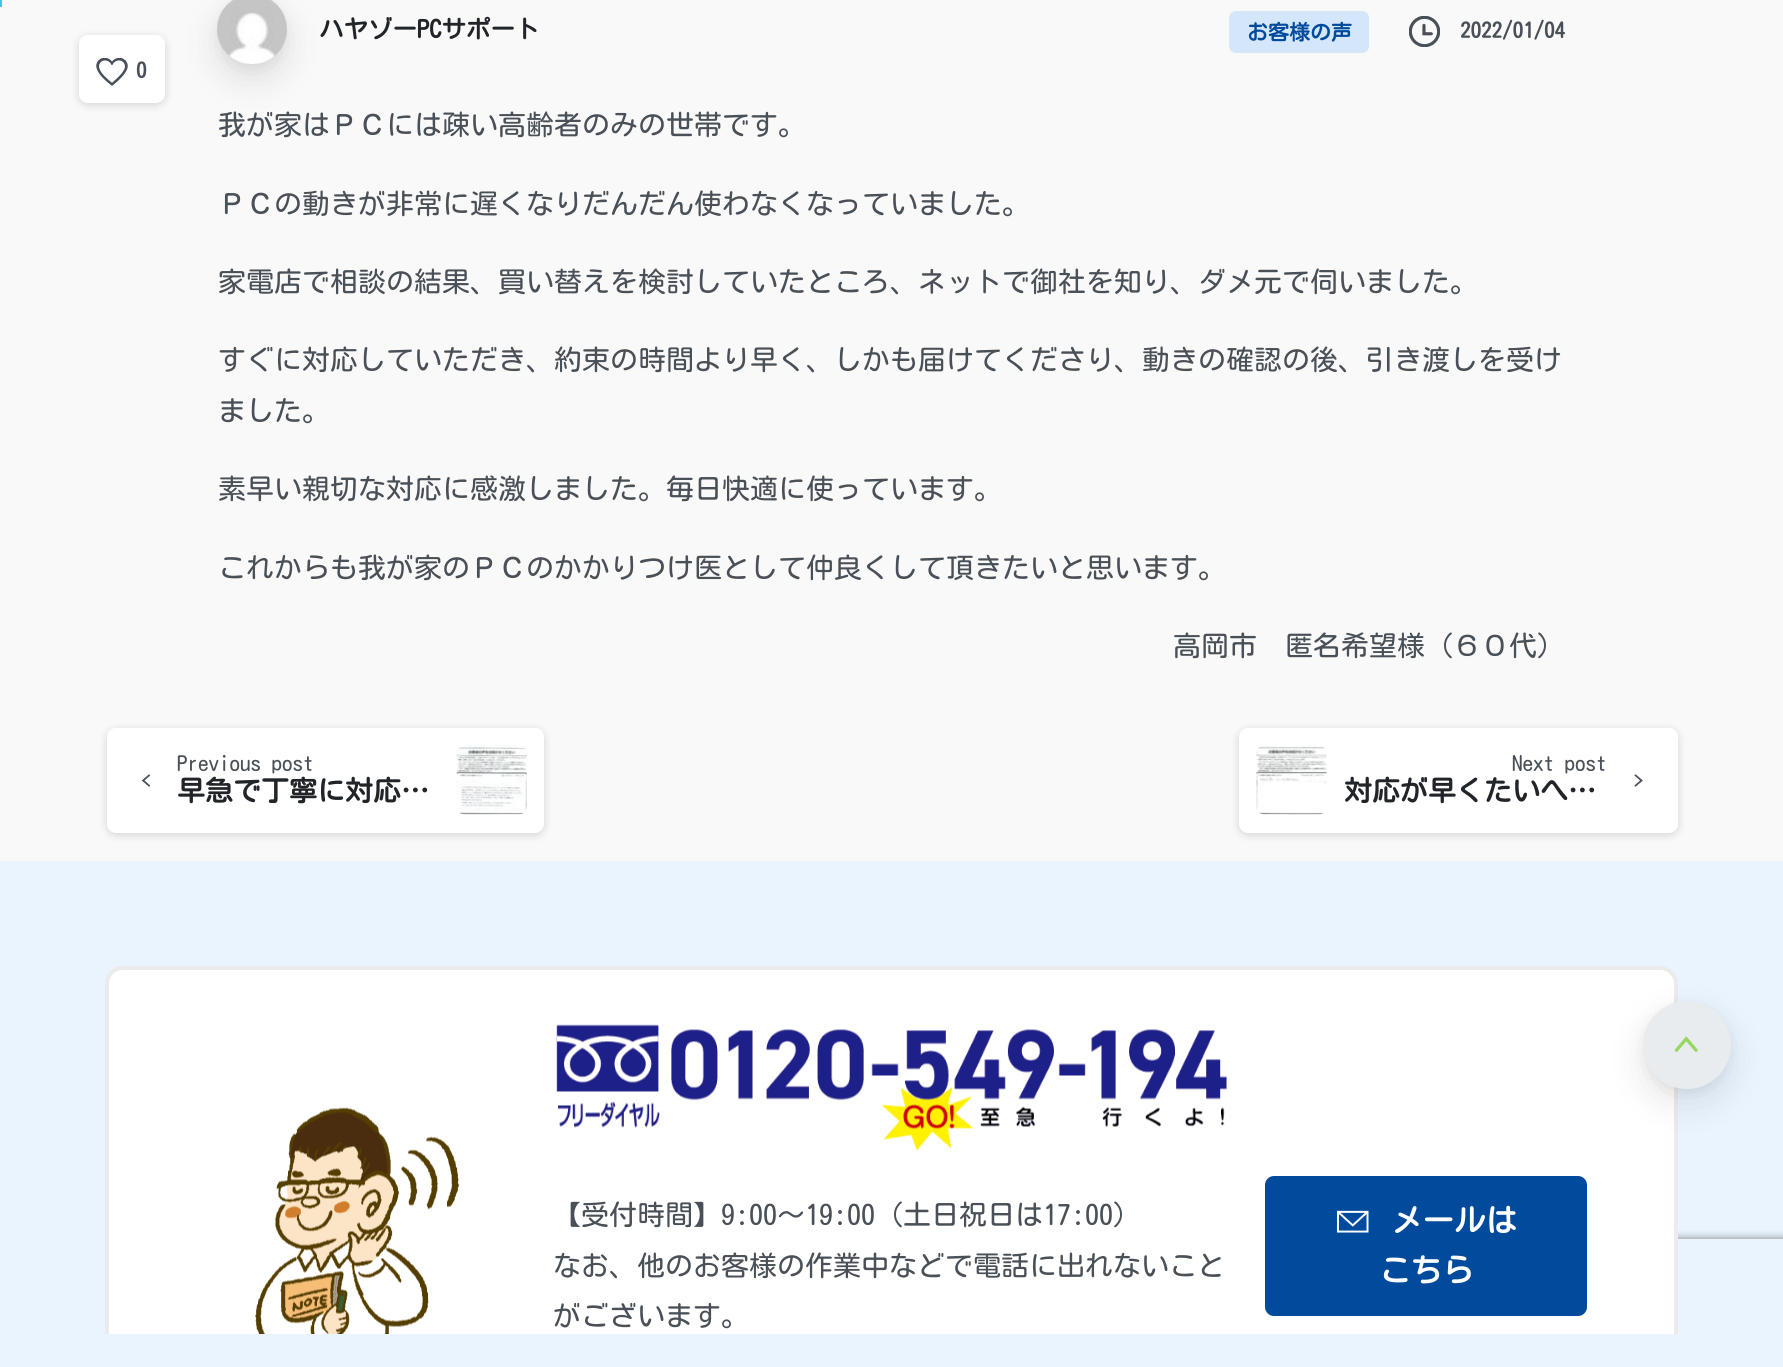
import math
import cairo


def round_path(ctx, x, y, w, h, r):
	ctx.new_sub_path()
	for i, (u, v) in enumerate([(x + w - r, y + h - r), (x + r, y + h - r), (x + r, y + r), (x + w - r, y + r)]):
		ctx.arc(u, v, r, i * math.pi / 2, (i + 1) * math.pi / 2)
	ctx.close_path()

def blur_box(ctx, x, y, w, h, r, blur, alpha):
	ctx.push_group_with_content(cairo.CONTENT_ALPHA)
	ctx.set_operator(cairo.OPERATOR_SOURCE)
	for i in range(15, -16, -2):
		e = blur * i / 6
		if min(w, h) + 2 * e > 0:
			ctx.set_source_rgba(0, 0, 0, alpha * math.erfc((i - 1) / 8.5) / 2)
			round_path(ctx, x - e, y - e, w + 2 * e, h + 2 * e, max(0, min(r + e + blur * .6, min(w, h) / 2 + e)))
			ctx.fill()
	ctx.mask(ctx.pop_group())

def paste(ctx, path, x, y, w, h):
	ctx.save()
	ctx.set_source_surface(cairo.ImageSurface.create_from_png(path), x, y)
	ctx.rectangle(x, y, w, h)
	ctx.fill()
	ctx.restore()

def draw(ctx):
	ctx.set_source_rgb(0.914, 0.957, 1)
	ctx.paint()
	ctx.set_source_rgb(0.973, 0.976, 0.98)
	ctx.rectangle(0, 0, 1783, 861)
	ctx.fill()
	gradient = cairo.LinearGradient(-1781, 3.5, 1.8, 3.5)
	gradient.add_color_stop_rgba(0, 0.22, 0.631, 0.859, 1)
	gradient.add_color_stop_rgba(0.5, 0.204, 0.682, 0.788, 1)
	gradient.add_color_stop_rgba(1, 0.224, 0.792, 0.867, 1)
	ctx.set_source(gradient)
	ctx.rectangle(0, 0, 2, 7)
	ctx.fill()
	ctx.set_source_rgb(0, 0, 0)
	blur_box(ctx, 79, 37, 86, 68, 9, 4.5, 0.15)
	ctx.set_source_rgb(1, 1, 1)
	round_path(ctx, 79, 35, 86, 68, 9)
	ctx.fill()
	paste(ctx, 'media/1.png', 96, 58, 32, 28)
	ctx.select_font_face('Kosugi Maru', cairo.FONT_SLANT_NORMAL, cairo.FONT_WEIGHT_BOLD)
	ctx.set_font_size(21)
	ctx.set_source_rgb(0.286, 0.314, 0.341)
	ctx.move_to(136, 78)
	ctx.show_text('0')
	ctx.set_source_rgb(0, 0, 0)
	blur_box(ctx, 217, 9, 70, 70, 35, 17, 0.1)
	blur_box(ctx, 217, -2, 70, 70, 35, 5, 0.05)
	paste(ctx, 'media/2.png', 217, 0, 70, 64)
	ctx.set_font_size(24.5)
	ctx.set_source_rgb(0.129, 0.145, 0.161)
	ctx.move_to(319, 38)
	ctx.show_text('ハヤゾーPCサポート')
	ctx.set_source_rgb(0.831, 0.902, 0.98)
	round_path(ctx, 1229, 11, 140, 42, 7)
	ctx.fill()
	ctx.set_font_size(21)
	ctx.set_source_rgb(0.008, 0.29, 0.612)
	ctx.move_to(1247, 40)
	ctx.show_text('お客様の声')
	paste(ctx, 'media/3.png', 1409, 16, 31, 31)
	ctx.set_source_rgb(0.286, 0.314, 0.341)
	ctx.move_to(1460, 38)
	ctx.show_text('2022/01/04')
	ctx.select_font_face('Kosugi Maru')
	ctx.set_font_size(28)
	for x, y, s in [
		(218, 135, '我が家はＰＣには疎い高齢者のみの世帯です。'),
		(218, 214, 'ＰＣの動きが非常に遅くなりだんだん使わなくなっていました。'),
		(218, 292, '家電店で相談の結果、買い替えを検討していたところ、ネットで御社を知り、ダメ元で伺いました。'),
		(218, 370, 'すぐに対応していただき、約束の時間より早く、しかも届けてくださり、動きの確認の後、引き渡しを受け'),
		(218, 421, 'ました。'),
		(218, 499, '素早い親切な対応に感激しました。毎日快適に使っています。'),
		(218, 578, 'これからも我が家のＰＣのかかりつけ医として仲良くして頂きたいと思います。'),
		(1173, 656, '高岡市　匿名希望様（６０代）'),
	]:
		ctx.move_to(x, y)
		ctx.show_text(s)
	ctx.set_source_rgb(0, 0, 0)
	blur_box(ctx, 107, 730, 437, 105, 9, 4.5, 0.15)
	ctx.set_source_rgb(1, 1, 1)
	round_path(ctx, 107, 728, 437, 105, 9)
	ctx.fill()
	paste(ctx, 'media/4.png', 141, 774, 9, 13)
	ctx.set_font_size(21)
	ctx.set_source_rgb(0.286, 0.314, 0.341)
	ctx.move_to(177, 771)
	ctx.show_text('Previous post')
	ctx.select_font_face('Kosugi Maru', cairo.FONT_SLANT_NORMAL, cairo.FONT_WEIGHT_BOLD)
	ctx.set_font_size(28)
	ctx.set_source_rgb(0.129, 0.145, 0.161)
	ctx.move_to(177, 801)
	ctx.show_text('早急で丁寧に対応…')
	paste(ctx, 'media/5.png', 456, 745, 71, 70)
	ctx.set_source_rgb(0, 0, 0)
	blur_box(ctx, 1239, 730, 439, 105, 9, 4.5, 0.15)
	ctx.set_source_rgb(1, 1, 1)
	round_path(ctx, 1239, 728, 439, 105, 9)
	ctx.fill()
	paste(ctx, 'media/6.png', 1256, 745, 71, 70)
	ctx.select_font_face('Kosugi Maru')
	ctx.set_font_size(21)
	ctx.set_source_rgb(0.286, 0.314, 0.341)
	ctx.move_to(1512, 771)
	ctx.show_text('Next post')
	ctx.select_font_face('Kosugi Maru', cairo.FONT_SLANT_NORMAL, cairo.FONT_WEIGHT_BOLD)
	ctx.set_font_size(28)
	ctx.set_source_rgb(0.129, 0.145, 0.161)
	ctx.move_to(1344, 801)
	ctx.show_text('対応が早くたいへ…')
	paste(ctx, 'media/7.png', 1634, 774, 9, 13)
	ctx.save()
	ctx.rectangle(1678, 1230, 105, 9)
	ctx.clip()
	ctx.set_source_rgb(0.502, 0.502, 0.502)
	blur_box(ctx, 1661, 1239, 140, 105, 4, 4.5, 1)
	ctx.restore()
	ctx.set_source_rgb(1, 1, 1)
	round_path(ctx, 105, 966, 1573, 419, 18)
	ctx.fill()
	round_path(ctx, 107, 968, 1569, 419, 16)
	ctx.set_source_rgba(0, 0, 0, 0.08)
	ctx.set_line_width(4)
	ctx.stroke()
	paste(ctx, 'media/8.png', 255, 1107, 204, 227)
	paste(ctx, 'media/9.png', 556, 1024, 671, 127)
	ctx.select_font_face('Kosugi Maru')
	ctx.set_source_rgb(0.286, 0.314, 0.341)
	for x, y, s in [
		(553, 1225, '【受付時間】9:00～19:00（土日祝日は17:00）'),
		(553, 1276, 'なお、他のお客様の作業中などで電話に出れないこと'),
		(553, 1326, 'がございます。'),
	]:
		ctx.move_to(x, y)
		ctx.show_text(s)
	ctx.set_source_rgb(0.008, 0.29, 0.612)
	round_path(ctx, 1265, 1176, 322, 140, 9)
	ctx.fill()
	paste(ctx, 'media/10.png', 1337, 1210, 32, 23)
	ctx.select_font_face('Kosugi Maru', cairo.FONT_SLANT_NORMAL, cairo.FONT_WEIGHT_BOLD)
	ctx.set_font_size(31.5)
	ctx.set_source_rgb(1, 1, 1)
	ctx.move_to(1391, 1232)
	ctx.show_text('メールは')
	ctx.move_to(1379, 1282)
	ctx.show_text('こちら')
	ctx.set_source_rgb(0.914, 0.957, 1)
	ctx.rectangle(105, 1334, 1678, 33)
	ctx.fill()
	ctx.set_source_rgb(0, 0, 0)
	blur_box(ctx, 1643, 1015, 88, 88, 44, 17, 0.1)
	blur_box(ctx, 1643, 1005, 88, 87, 43.5, 5, 0.05)
	ctx.set_source_rgb(0.914, 0.925, 0.937)
	ctx.arc(1687, 1045, 44, 0, 2 * math.pi)
	ctx.fill()
	paste(ctx, 'media/11.png', 1674, 1036, 24, 16)


surface = cairo.ImageSurface(cairo.FORMAT_RGB24, 1783, 1367)
ctx = cairo.Context(surface)
options = cairo.FontOptions()
options.set_hint_metrics(cairo.HINT_METRICS_OFF)
options.set_hint_style(cairo.HINT_STYLE_NONE)
ctx.set_font_options(options)
ctx.set_miter_limit(4)
draw(ctx)
surface.write_to_png('image.png')
